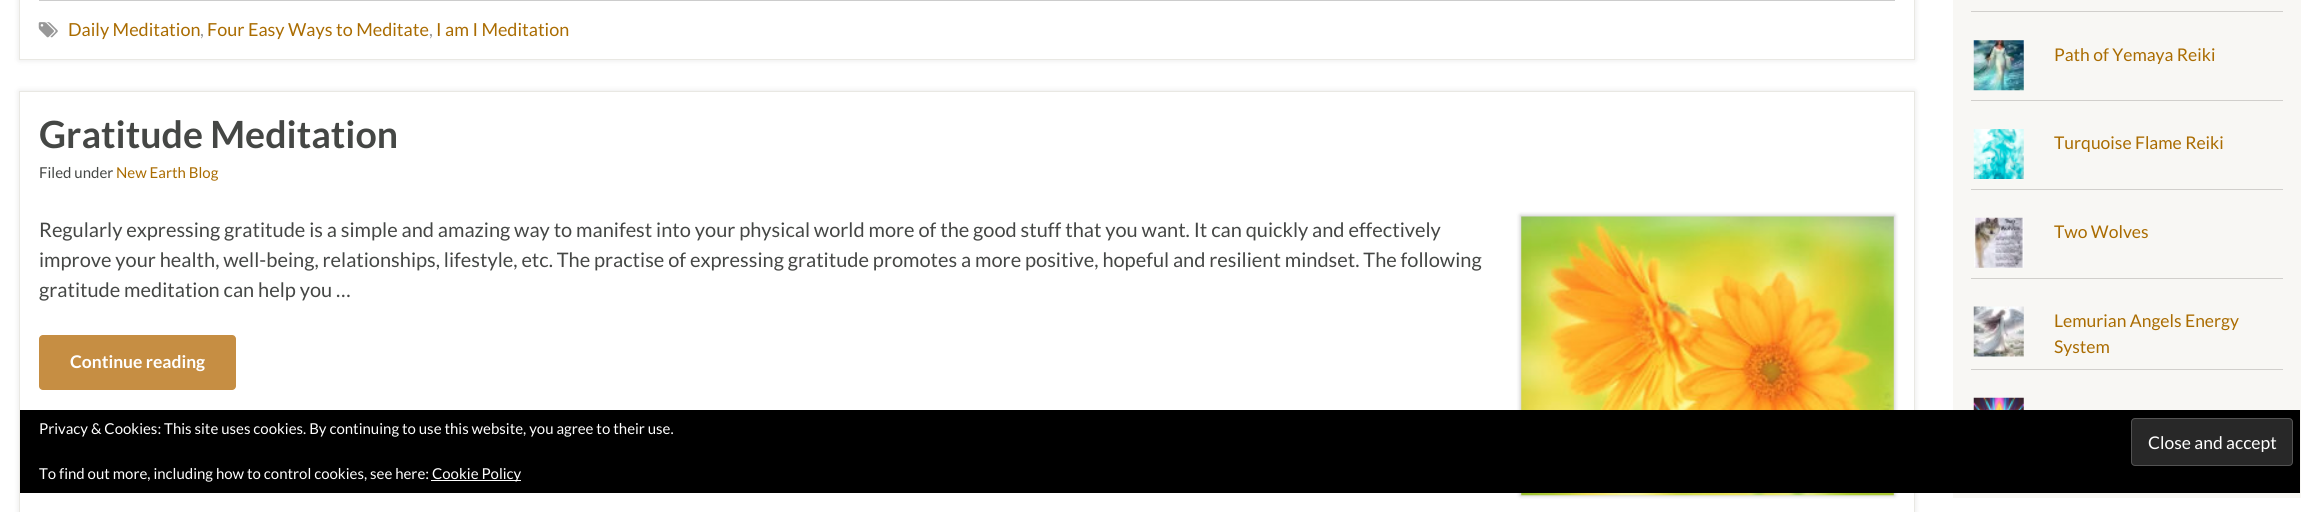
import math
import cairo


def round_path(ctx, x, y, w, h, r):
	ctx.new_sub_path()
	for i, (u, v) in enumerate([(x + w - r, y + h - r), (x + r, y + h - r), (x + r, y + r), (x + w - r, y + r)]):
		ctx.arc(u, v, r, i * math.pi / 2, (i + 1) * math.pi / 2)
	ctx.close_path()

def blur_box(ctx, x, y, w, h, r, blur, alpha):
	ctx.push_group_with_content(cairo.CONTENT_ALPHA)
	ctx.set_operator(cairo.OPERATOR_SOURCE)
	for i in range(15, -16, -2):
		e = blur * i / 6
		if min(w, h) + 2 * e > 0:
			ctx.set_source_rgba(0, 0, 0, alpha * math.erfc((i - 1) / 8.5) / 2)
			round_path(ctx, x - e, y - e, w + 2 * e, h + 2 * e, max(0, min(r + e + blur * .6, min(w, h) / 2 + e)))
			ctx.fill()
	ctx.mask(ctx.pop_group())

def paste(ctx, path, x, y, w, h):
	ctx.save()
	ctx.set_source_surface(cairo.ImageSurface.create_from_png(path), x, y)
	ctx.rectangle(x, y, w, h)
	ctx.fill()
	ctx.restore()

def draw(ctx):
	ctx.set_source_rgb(1, 1, 1)
	ctx.paint()
	ctx.save()
	ctx.set_fill_rule(cairo.FILL_RULE_EVEN_ODD)
	ctx.new_path()
	ctx.move_to(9, 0)
	ctx.line_to(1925, 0)
	ctx.line_to(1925, 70)
	ctx.line_to(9, 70)
	ctx.close_path()
	ctx.move_to(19, -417)
	ctx.line_to(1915, -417)
	ctx.line_to(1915, 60)
	ctx.line_to(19, 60)
	ctx.close_path()
	ctx.clip()
	ctx.set_source_rgb(0, 0, 0)
	blur_box(ctx, 19, -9, 1896, 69, 0, 3, 0.1)
	ctx.restore()
	ctx.rectangle(19.5, -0.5, 1895, 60)
	ctx.set_source_rgb(0.914, 0.91, 0.89)
	ctx.set_line_width(1)
	ctx.stroke()
	ctx.set_source_rgb(0.8, 0.8, 0.8)
	ctx.rectangle(39, 0, 1856, 1)
	ctx.fill()
	paste(ctx, 'media/1.png', 38, 22, 20, 16)
	ctx.select_font_face('Lato')
	ctx.set_font_size(18)
	ctx.set_source_rgb(0.667, 0.424, 0.004)
	ctx.move_to(68, 36)
	ctx.show_text('Daily Meditation')
	ctx.set_source_rgb(0.596, 0.596, 0.596)
	ctx.move_to(200, 36)
	ctx.show_text(',')
	ctx.set_source_rgb(0.667, 0.424, 0.004)
	ctx.move_to(207, 36)
	ctx.show_text('Four Easy Ways to Meditate')
	ctx.set_source_rgb(0.596, 0.596, 0.596)
	ctx.move_to(429, 36)
	ctx.show_text(',')
	ctx.set_source_rgb(0.667, 0.424, 0.004)
	ctx.move_to(436, 36)
	ctx.show_text('I am I Meditation')
	ctx.set_source_rgb(0, 0, 0)
	blur_box(ctx, 19, 91, 1896, 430, 0, 3, 0.1)
	ctx.set_source_rgb(1, 1, 1)
	ctx.rectangle(19.5, 91.5, 1895, 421)
	ctx.fill_preserve()
	ctx.set_source_rgb(0.914, 0.91, 0.89)
	ctx.stroke()
	ctx.select_font_face('Lato', cairo.FONT_SLANT_NORMAL, cairo.FONT_WEIGHT_BOLD)
	ctx.set_font_size(37.5)
	ctx.set_source_rgb(0.271, 0.278, 0.271)
	ctx.move_to(39, 148)
	ctx.show_text('Gratitude Meditation')
	ctx.select_font_face('Lato')
	ctx.set_font_size(15)
	ctx.move_to(39, 178)
	ctx.show_text('Filed under')
	ctx.set_source_rgb(0.667, 0.424, 0.004)
	ctx.move_to(116, 178)
	ctx.show_text('New Earth Blog')
	ctx.set_font_size(20)
	ctx.set_source_rgb(0.271, 0.278, 0.271)
	for x, y, s in [
		(39, 237, 'Regularly expressing gratitude is a simple and amazing way to manifest into your physical world more of the good stuff that you want. It can quickly and effectively'),
		(39, 267, 'improve your health, well-being, relationships, lifestyle, etc. The practise of expressing gratitude promotes a more positive, hopeful and resilient mindset. The following'),
		(39, 297, 'gratitude meditation can help you …'),
	]:
		ctx.move_to(x, y)
		ctx.show_text(s)
	ctx.set_source_rgb(0, 0, 0)
	blur_box(ctx, 1520, 215, 375, 281, 0, 2, 0.2)
	paste(ctx, 'media/2.png', 1521, 216, 373, 280)
	ctx.set_source_rgb(0.776, 0.557, 0.263)
	round_path(ctx, 39, 335, 197, 55, 4)
	ctx.fill()
	ctx.select_font_face('Lato', cairo.FONT_SLANT_NORMAL, cairo.FONT_WEIGHT_BOLD)
	ctx.set_font_size(17.5)
	ctx.set_source_rgb(1, 1, 1)
	ctx.move_to(70, 368)
	ctx.show_text('Continue reading')
	ctx.set_source_rgb(0.969, 0.965, 0.957)
	ctx.rectangle(1953, 0, 348, 498)
	ctx.fill()
	ctx.set_source_rgb(0.82, 0.812, 0.8)
	ctx.rectangle(1971, 11, 312, 1)
	ctx.rectangle(1971, 100, 312, 1)
	ctx.fill()
	paste(ctx, 'media/3.png', 1973, 40, 51, 51)
	ctx.select_font_face('Lato')
	ctx.set_source_rgb(0.667, 0.424, 0.004)
	ctx.move_to(2054, 61)
	ctx.show_text('Path of Yemaya Reiki')
	ctx.set_source_rgb(0.82, 0.812, 0.8)
	ctx.rectangle(1971, 189, 312, 1)
	ctx.fill()
	paste(ctx, 'media/4.png', 1973, 129, 51, 50)
	ctx.set_source_rgb(0.667, 0.424, 0.004)
	ctx.move_to(2054, 149)
	ctx.show_text('Turquoise Flame Reiki')
	ctx.set_source_rgb(0.82, 0.812, 0.8)
	ctx.rectangle(1971, 278, 312, 1)
	ctx.fill()
	paste(ctx, 'media/5.png', 1974, 217, 50, 51)
	ctx.set_source_rgb(0.667, 0.424, 0.004)
	ctx.move_to(2054, 238)
	ctx.show_text('Two Wolves')
	ctx.set_source_rgb(0.82, 0.812, 0.8)
	ctx.rectangle(1971, 369, 312, 1)
	ctx.fill()
	paste(ctx, 'media/6.png', 1973, 306, 51, 51)
	ctx.set_source_rgb(0.667, 0.424, 0.004)
	ctx.move_to(2054, 327)
	ctx.show_text('Lemurian Angels Energy')
	ctx.move_to(2054, 353)
	ctx.show_text('System')
	paste(ctx, 'media/7.png', 1973, 397, 51, 13)
	ctx.set_source_rgb(0, 0, 0)
	ctx.rectangle(20, 410, 2280, 83)
	ctx.fill()
	ctx.set_font_size(15)
	ctx.set_source_rgb(1, 1, 1)
	ctx.move_to(39, 434)
	ctx.show_text('Privacy & Cookies: This site uses cookies. By continuing to use this website, you agree to their use.')
	ctx.set_source_rgb(0.157, 0.157, 0.157)
	round_path(ctx, 2131.5, 418.5, 161, 47, 3.5)
	ctx.fill_preserve()
	ctx.set_source_rgb(0.325, 0.325, 0.325)
	ctx.stroke()
	ctx.set_font_size(17.5)
	ctx.set_source_rgb(1, 1, 1)
	ctx.move_to(2148, 449)
	ctx.show_text('Close and accept')
	ctx.set_font_size(15)
	ctx.move_to(39, 479)
	ctx.show_text('To find out more, including how to control cookies, see here:')
	ctx.rectangle(431, 480, 90, 1)
	ctx.fill()
	ctx.move_to(432, 479)
	ctx.show_text('Cookie Policy')


surface = cairo.ImageSurface(cairo.FORMAT_RGB24, 2320, 512)
ctx = cairo.Context(surface)
options = cairo.FontOptions()
options.set_hint_metrics(cairo.HINT_METRICS_OFF)
options.set_hint_style(cairo.HINT_STYLE_NONE)
ctx.set_font_options(options)
ctx.set_miter_limit(4)
draw(ctx)
surface.write_to_png('image.png')
